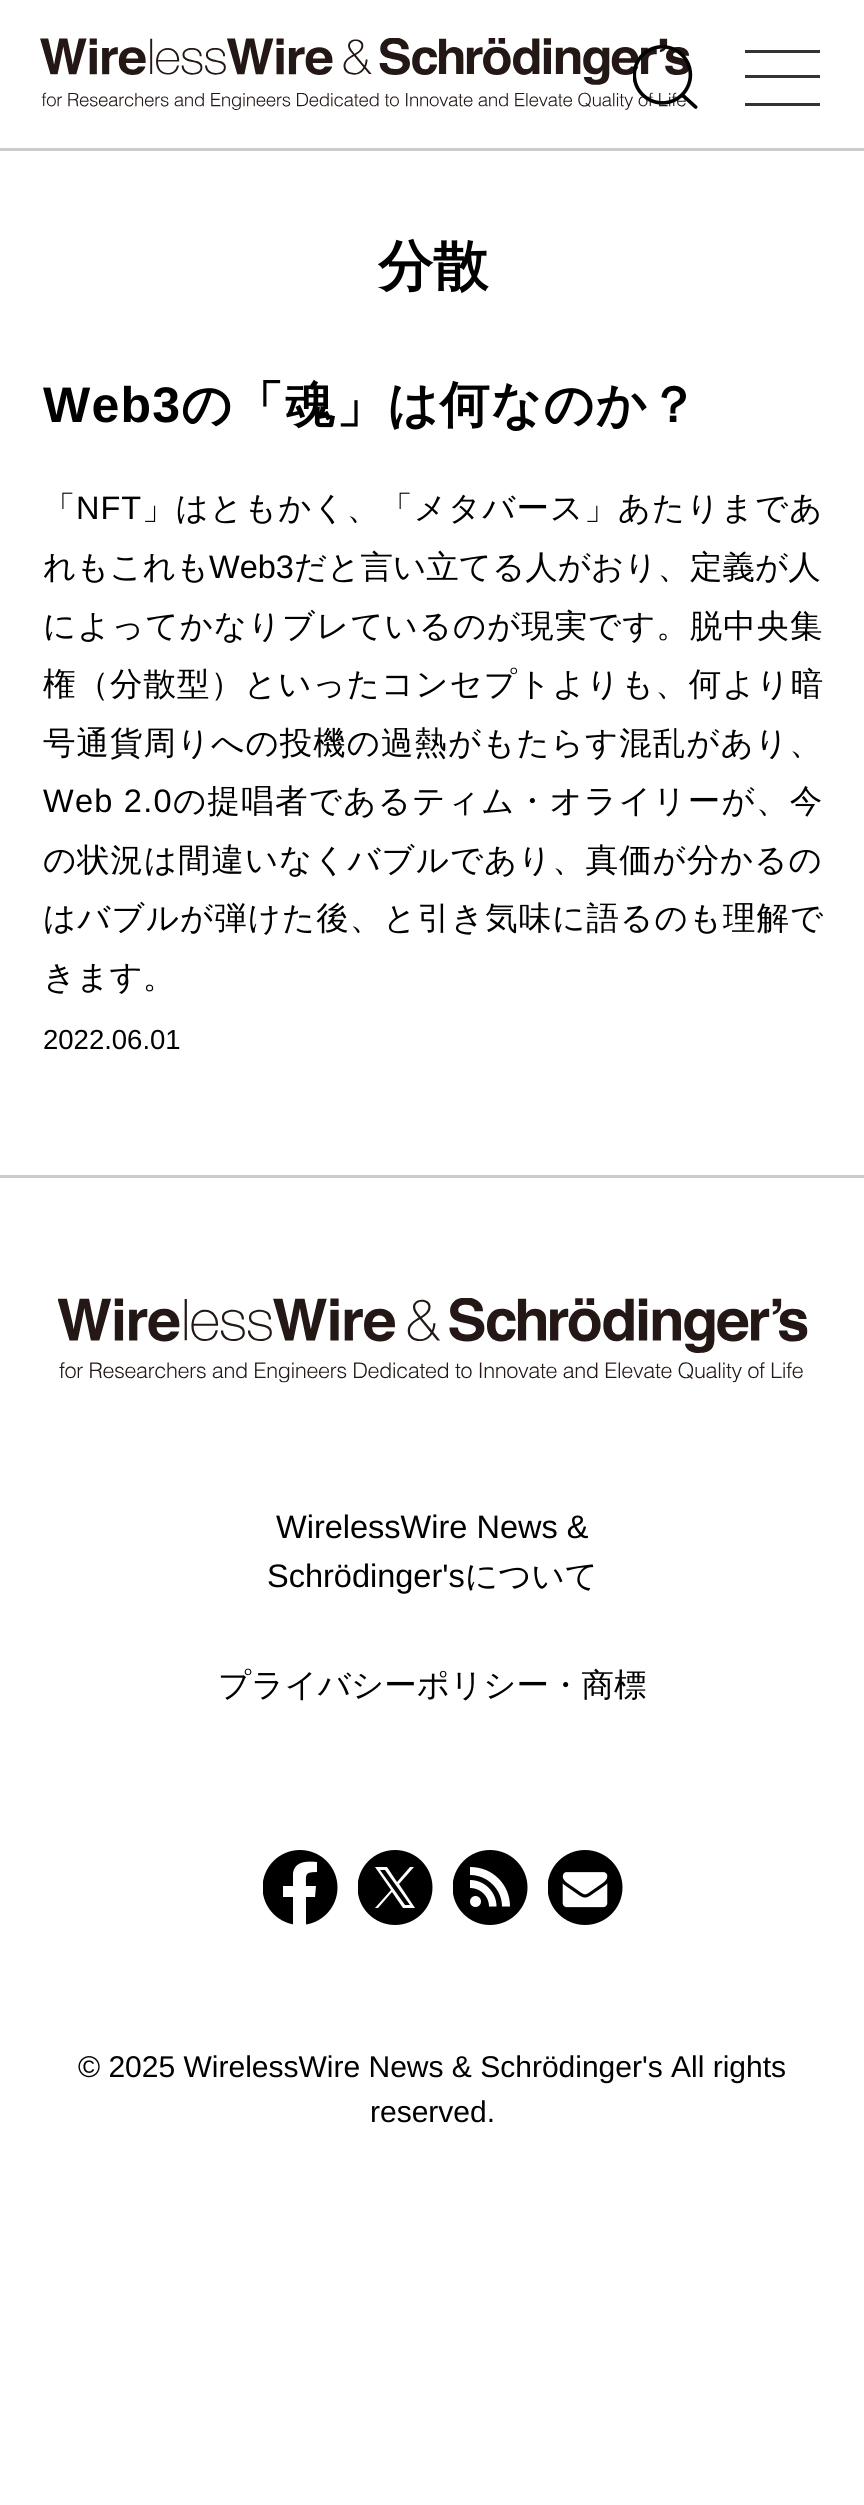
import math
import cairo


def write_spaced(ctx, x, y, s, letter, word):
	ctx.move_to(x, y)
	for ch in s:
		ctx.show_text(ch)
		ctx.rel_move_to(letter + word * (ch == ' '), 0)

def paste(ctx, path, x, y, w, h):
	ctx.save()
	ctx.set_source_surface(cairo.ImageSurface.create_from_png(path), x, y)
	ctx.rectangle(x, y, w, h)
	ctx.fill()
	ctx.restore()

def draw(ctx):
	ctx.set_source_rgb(1, 1, 1)
	ctx.paint()
	ctx.set_source_rgb(0.8, 0.8, 0.8)
	ctx.rectangle(0, 148, 864, 3)
	ctx.fill()
	paste(ctx, 'media/1.png', 40, 38, 650, 72)
	paste(ctx, 'media/2.png', 633, 45, 65, 64)
	ctx.set_source_rgb(0.2, 0.2, 0.2)
	ctx.rectangle(745, 50, 75, 3)
	ctx.rectangle(745, 75, 75, 3)
	ctx.rectangle(745, 103, 75, 3)
	ctx.fill()
	ctx.select_font_face('WenQuanYi Zen Hei', cairo.FONT_SLANT_NORMAL, cairo.FONT_WEIGHT_BOLD)
	ctx.set_font_size(55)
	ctx.set_source_rgb(0, 0, 0)
	ctx.move_to(378, 285)
	ctx.show_text('分散')
	ctx.select_font_face('Liberation Sans', cairo.FONT_SLANT_NORMAL, cairo.FONT_WEIGHT_BOLD)
	ctx.set_font_size(50)
	write_spaced(ctx, 43, 422, 'Web3', 1.25, 0)
	ctx.select_font_face('WenQuanYi Zen Hei', cairo.FONT_SLANT_NORMAL, cairo.FONT_WEIGHT_BOLD)
	write_spaced(ctx, 181, 422, 'の「魂」は何なのか？', 1.25, 0)
	ctx.select_font_face('WenQuanYi Zen Hei Medium')
	ctx.set_font_size(32.5)
	write_spaced(ctx, 43, 519, '「', 1, 0)
	ctx.select_font_face('Liberation Sans')
	write_spaced(ctx, 76, 519, 'NFT', 1, 0)
	ctx.select_font_face('WenQuanYi Zen Hei Medium')
	write_spaced(ctx, 142, 519, '」はともかく、「メタバース」あたりまであ', 1, 0)
	ctx.move_to(43, 578)
	ctx.show_text('れもこれも')
	ctx.select_font_face('Liberation Sans')
	ctx.move_to(209, 578)
	ctx.show_text('Web3')
	ctx.select_font_face('WenQuanYi Zen Hei Medium')
	ctx.move_to(294, 578)
	ctx.show_text('だと言い立てる人がおり、定義が人')
	write_spaced(ctx, 43, 637, 'によってかなりブレているのが現実です。脱中央集', 0.9, 0)
	write_spaced(ctx, 43, 695, '権（分散型）といったコンセプトよりも、何より暗', 1, 0)
	write_spaced(ctx, 43, 754, '号通貨周りへの投機の過熱がもたらす混乱があり、', 1, 0)
	ctx.select_font_face('Liberation Sans')
	write_spaced(ctx, 43, 812, 'Web 2.0', 1.25, 0)
	ctx.select_font_face('WenQuanYi Zen Hei Medium')
	write_spaced(ctx, 173, 812, 'の提唱者であるティム・オライリーが、今', 1.25, 0)
	write_spaced(ctx, 43, 871, 'の状況は間違いなくバブルであり、真価が分かるの', 0.9, 0)
	write_spaced(ctx, 43, 929, 'はバブルが弾けた後、と引き気味に語るのも理解で', 1, 0)
	ctx.move_to(43, 988)
	ctx.show_text('きます。')
	ctx.select_font_face('Liberation Sans')
	ctx.set_font_size(27.5)
	ctx.move_to(43, 1049)
	ctx.show_text('2022.06.01')
	ctx.set_source_rgb(0.8, 0.8, 0.8)
	ctx.rectangle(0, 1175, 864, 3)
	ctx.fill()
	paste(ctx, 'media/3.png', 58, 1298, 750, 85)
	ctx.set_font_size(32.5)
	ctx.set_source_rgb(0, 0, 0)
	ctx.move_to(276, 1538)
	ctx.show_text('WirelessWire News &')
	ctx.move_to(267, 1587)
	ctx.show_text('Schrödinger\'s')
	ctx.select_font_face('WenQuanYi Zen Hei Medium')
	ctx.move_to(465, 1587)
	ctx.show_text('について')
	ctx.move_to(218, 1696)
	ctx.show_text('プライバシーポリシー・商標')
	ctx.save()
	ctx.rectangle(263, 1850, 75, 75)
	ctx.clip()
	ctx.arc(300, 1887.5, 37.5, 0, 2 * math.pi)
	ctx.fill()
	ctx.restore()
	ctx.set_source_rgb(1, 1, 1)
	ctx.new_path()
	ctx.move_to(315, 1897)
	ctx.line_to(316, 1886)
	ctx.line_to(306, 1886)
	ctx.curve_to(306, 1875, 304, 1872, 317, 1872)
	ctx.line_to(317, 1862)
	ctx.curve_to(307, 1861, 295, 1861, 293, 1873)
	ctx.line_to(293, 1886)
	ctx.line_to(283, 1886)
	ctx.line_to(283, 1897)
	ctx.line_to(293, 1897)
	ctx.line_to(293, 1925)
	ctx.curve_to(297, 1925, 301, 1925, 306, 1925)
	ctx.line_to(306, 1897)
	ctx.close_path()
	ctx.fill()
	ctx.save()
	ctx.rectangle(358, 1850, 75, 75)
	ctx.clip()
	ctx.set_source_rgb(0, 0, 0)
	ctx.arc(395, 1887.5, 37.5, 0, 2 * math.pi)
	ctx.fill()
	ctx.restore()
	ctx.new_path()
	ctx.move_to(399, 1884)
	ctx.line_to(414, 1867)
	ctx.line_to(410, 1867)
	ctx.line_to(397, 1882)
	ctx.line_to(387, 1867)
	ctx.line_to(375, 1867)
	ctx.line_to(391, 1890)
	ctx.line_to(375, 1908)
	ctx.line_to(378, 1908)
	ctx.line_to(392, 1892)
	ctx.line_to(403, 1908)
	ctx.line_to(415, 1908)
	ctx.move_to(380, 1870)
	ctx.line_to(385, 1870)
	ctx.line_to(410, 1905)
	ctx.line_to(405, 1905)
	ctx.fill()
	ctx.save()
	ctx.rectangle(453, 1850, 75, 75)
	ctx.clip()
	ctx.set_source_rgb(0, 0, 0)
	ctx.arc(490, 1887.5, 37.5, 0, 2 * math.pi)
	ctx.fill()
	ctx.restore()
	ctx.new_path()
	ctx.move_to(498.5, 1878.5)
	ctx.curve_to(491, 1871, 481, 1867, 470, 1867)
	ctx.line_to(470, 1875)
	ctx.curve_to(487.5, 1875, 502, 1889.5, 502, 1906.5)
	ctx.line_to(510, 1906.5)
	ctx.curve_to(510, 1896, 506, 1886, 498.5, 1878.5)
	ctx.close_path()
	ctx.fill()
	ctx.new_path()
	ctx.move_to(470, 1880)
	ctx.line_to(470, 1888)
	ctx.curve_to(480.5, 1888, 489, 1896.5, 489, 1906.5)
	ctx.line_to(496.5, 1906.5)
	ctx.curve_to(496.5, 1892, 484.5, 1880, 470, 1880)
	ctx.close_path()
	ctx.fill()
	ctx.arc(475.5, 1901.5, 5.5, 0, 2 * math.pi)
	ctx.fill()
	paste(ctx, 'media/4.png', 548, 1850, 75, 75)
	ctx.select_font_face('Liberation Sans')
	ctx.set_font_size(30)
	ctx.set_source_rgb(0, 0, 0)
	ctx.move_to(78, 2077)
	ctx.show_text('© 2025 WirelessWire News & Schrödinger\'s All rights')
	ctx.move_to(370, 2122)
	ctx.show_text('reserved.')


surface = cairo.ImageSurface(cairo.FORMAT_RGB24, 864, 2505)
ctx = cairo.Context(surface)
options = cairo.FontOptions()
options.set_hint_metrics(cairo.HINT_METRICS_OFF)
options.set_hint_style(cairo.HINT_STYLE_NONE)
ctx.set_font_options(options)
ctx.set_miter_limit(4)
draw(ctx)
surface.write_to_png('image.png')
